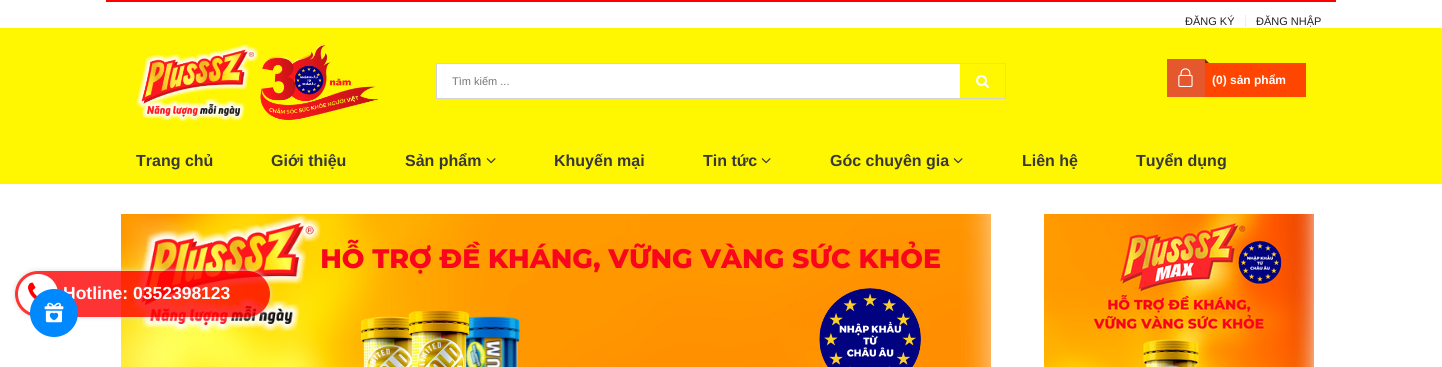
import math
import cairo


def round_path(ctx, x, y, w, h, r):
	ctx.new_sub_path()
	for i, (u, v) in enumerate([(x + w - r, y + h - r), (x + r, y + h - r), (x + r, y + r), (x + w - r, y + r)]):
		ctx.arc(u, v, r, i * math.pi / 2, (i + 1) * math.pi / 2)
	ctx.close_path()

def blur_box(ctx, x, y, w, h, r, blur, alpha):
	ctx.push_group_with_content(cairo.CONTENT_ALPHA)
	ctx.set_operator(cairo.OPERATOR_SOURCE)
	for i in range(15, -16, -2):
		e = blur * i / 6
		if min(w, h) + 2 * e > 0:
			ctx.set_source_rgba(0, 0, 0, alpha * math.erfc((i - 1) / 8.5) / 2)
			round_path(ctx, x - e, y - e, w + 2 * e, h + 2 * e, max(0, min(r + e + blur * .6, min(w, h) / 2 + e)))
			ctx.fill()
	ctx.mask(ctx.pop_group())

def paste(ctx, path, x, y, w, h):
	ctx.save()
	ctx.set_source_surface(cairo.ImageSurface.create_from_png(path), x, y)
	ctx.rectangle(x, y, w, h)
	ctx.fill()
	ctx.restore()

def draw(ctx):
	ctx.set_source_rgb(1, 1, 1)
	ctx.paint()
	ctx.set_source_rgb(0.996, 0, 0)
	ctx.rectangle(106, 0, 1230, 2)
	ctx.fill()
	ctx.select_font_face('Liberation Sans')
	ctx.set_font_size(11)
	ctx.set_source_rgb(0.133, 0.133, 0.133)
	ctx.move_to(1185, 25)
	ctx.show_text('ĐĂNG KÝ')
	ctx.set_source_rgb(0.953, 0.918, 0.918)
	ctx.rectangle(1245, 15, 1, 12)
	ctx.fill()
	ctx.set_source_rgb(0.133, 0.133, 0.133)
	ctx.move_to(1256, 25)
	ctx.show_text('ĐĂNG NHẬP')
	ctx.set_source_rgb(1, 0.961, 0.008)
	ctx.rectangle(0, 28, 1442, 156)
	ctx.fill()
	paste(ctx, 'media/1.png', 136, 43, 243, 79)
	ctx.set_source_rgb(1, 1, 1)
	ctx.rectangle(437, 64, 523, 34)
	ctx.fill()
	ctx.rectangle(436.5, 63.5, 569, 35)
	ctx.set_source_rgb(0.827, 0.827, 0.827)
	ctx.set_line_width(1)
	ctx.stroke()
	ctx.set_source_rgb(0.459, 0.459, 0.459)
	ctx.move_to(452, 85)
	ctx.show_text('Tìm kiếm ...')
	paste(ctx, 'media/2.png', 976, 75, 13, 13)
	ctx.set_source_rgb(1, 0.275, 0)
	ctx.rectangle(1205, 63, 101, 34)
	ctx.fill()
	ctx.set_source_rgb(0.898, 0.341, 0.173)
	ctx.rectangle(1167, 59, 38, 38)
	ctx.fill()
	paste(ctx, 'media/3.png', 1178, 68, 15, 19)
	ctx.set_source_rgb(0.502, 0.137, 0)
	ctx.new_path()
	ctx.move_to(1209, 63)
	ctx.line_to(1205, 63)
	ctx.line_to(1205, 59)
	ctx.close_path()
	ctx.fill()
	ctx.select_font_face('Liberation Sans', cairo.FONT_SLANT_NORMAL, cairo.FONT_WEIGHT_BOLD)
	ctx.set_font_size(12)
	ctx.set_source_rgb(1, 1, 1)
	ctx.move_to(1212, 84)
	ctx.show_text('(0) sản phẩm')
	ctx.set_font_size(16)
	ctx.set_source_rgb(0.22, 0.22, 0.22)
	for x, y, s in [
		(136, 166, 'Trang chủ'),
		(271, 166, 'Giới thiệu'),
		(405, 166, 'Sản phẩm'),
	]:
		ctx.move_to(x, y)
		ctx.show_text(s)
	paste(ctx, 'media/4.png', 486, 158, 10, 6)
	ctx.move_to(554, 166)
	ctx.show_text('Khuyến mại')
	ctx.move_to(703, 166)
	ctx.show_text('Tin tức')
	paste(ctx, 'media/4.png', 761, 158, 10, 6)
	ctx.move_to(830, 166)
	ctx.show_text('Góc chuyên gia')
	paste(ctx, 'media/4.png', 953, 158, 10, 6)
	ctx.move_to(1022, 166)
	ctx.show_text('Liên hệ')
	ctx.move_to(1136, 166)
	ctx.show_text('Tuyển dụng')
	paste(ctx, 'media/5.png', 121, 214, 870, 153)
	paste(ctx, 'media/6.png', 1044, 214, 270, 153)
	ctx.save()
	ctx.set_fill_rule(cairo.FILL_RULE_EVEN_ODD)
	ctx.new_path()
	ctx.move_to(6, 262)
	ctx.line_to(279, 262)
	ctx.line_to(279, 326)
	ctx.line_to(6, 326)
	ctx.close_path()
	ctx.move_to(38, 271)
	ctx.line_to(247, 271)
	ctx.curve_to(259.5, 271, 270, 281.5, 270, 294)
	ctx.curve_to(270, 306.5, 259.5, 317, 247, 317)
	ctx.line_to(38, 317)
	ctx.curve_to(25.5, 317, 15, 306.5, 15, 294)
	ctx.curve_to(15, 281.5, 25.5, 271, 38, 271)
	ctx.close_path()
	ctx.clip()
	ctx.set_source_rgb(0.867, 0.867, 0.867)
	blur_box(ctx, 15, 271, 255, 46, 23, 2.5, 1)
	ctx.restore()
	ctx.set_source_rgba(0.996, 0, 0, 0.8)
	round_path(ctx, 15, 271, 255, 46, 23)
	ctx.fill()
	ctx.set_source_rgb(1, 1, 1)
	ctx.arc(38, 294, 20, 0, 2 * math.pi)
	ctx.fill()
	paste(ctx, 'media/8.png', 28, 282, 9, 17)
	ctx.set_font_size(17.5)
	ctx.move_to(63, 299)
	ctx.show_text('Hotline: 0352398123')
	ctx.set_source_rgb(0, 0.533, 1)
	ctx.new_path()
	ctx.arc(54, 313, 24, 0, 2 * math.pi)
	ctx.fill()
	paste(ctx, 'media/7.png', 44, 302, 20, 21)


surface = cairo.ImageSurface(cairo.FORMAT_RGB24, 1442, 367)
ctx = cairo.Context(surface)
options = cairo.FontOptions()
options.set_hint_metrics(cairo.HINT_METRICS_OFF)
options.set_hint_style(cairo.HINT_STYLE_NONE)
ctx.set_font_options(options)
ctx.set_miter_limit(4)
draw(ctx)
surface.write_to_png('image.png')
